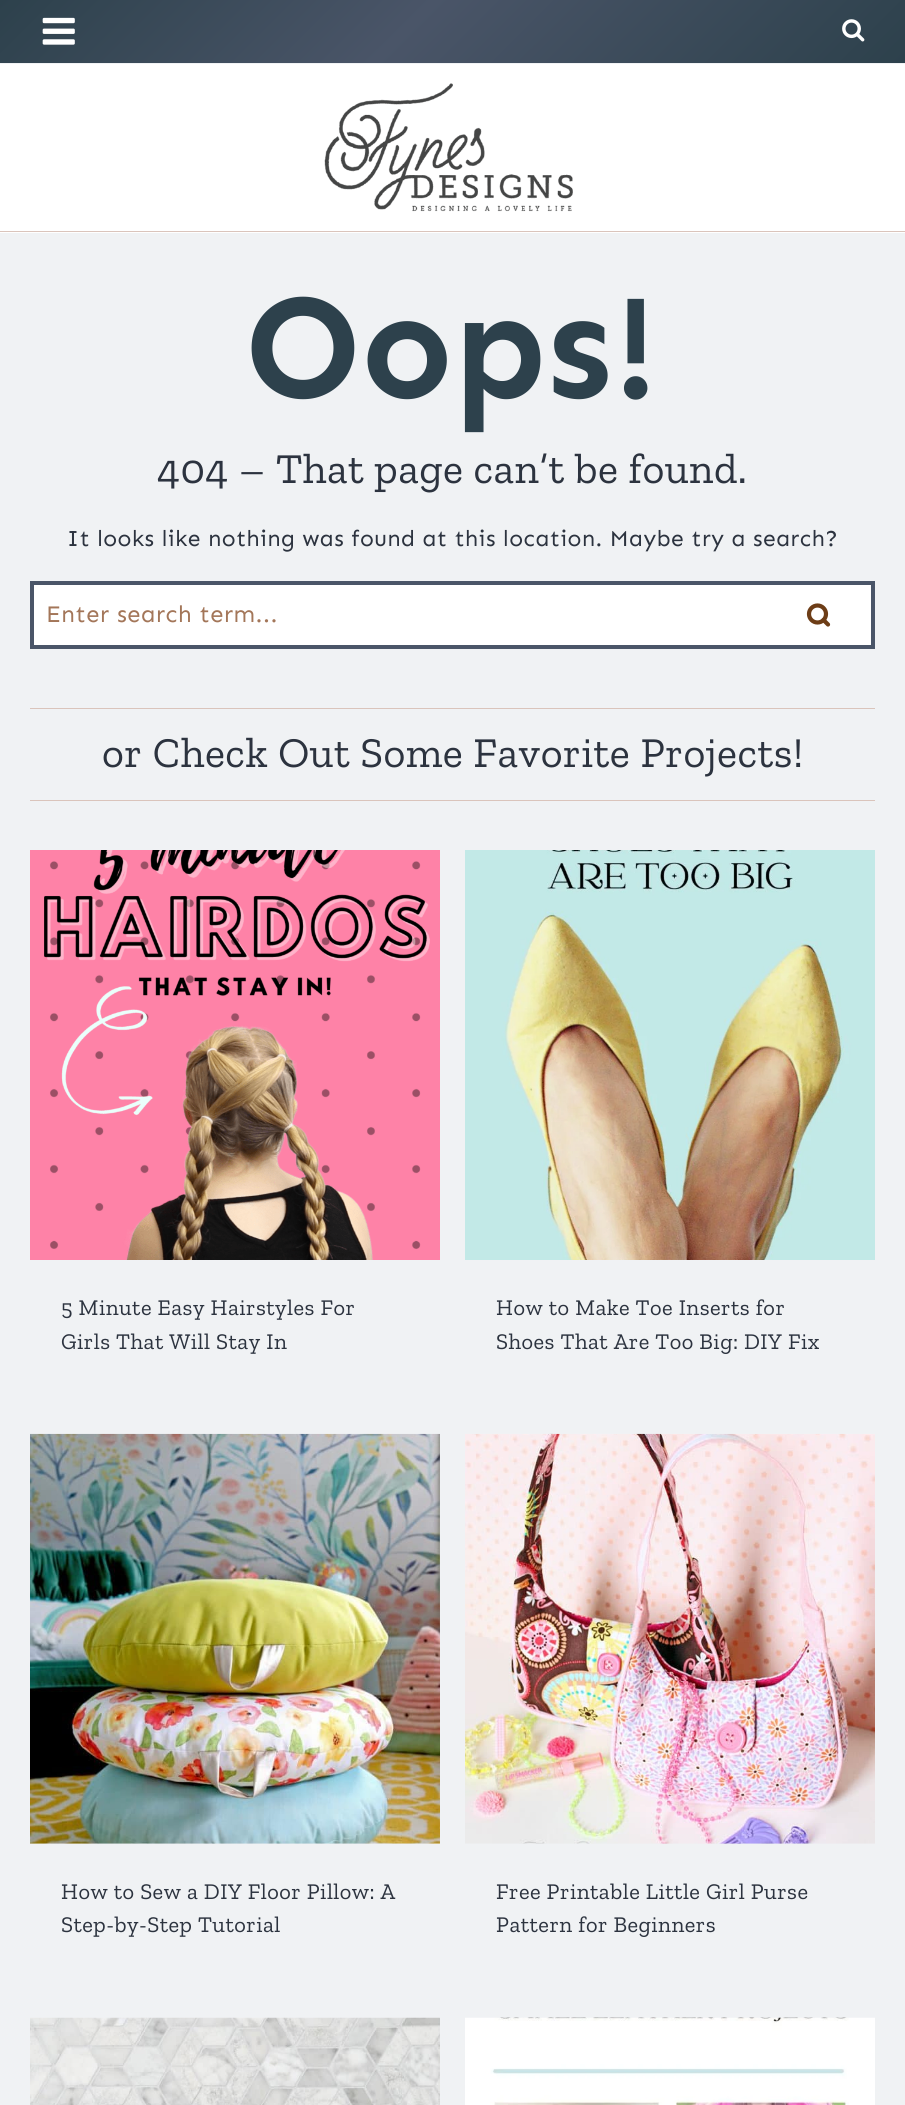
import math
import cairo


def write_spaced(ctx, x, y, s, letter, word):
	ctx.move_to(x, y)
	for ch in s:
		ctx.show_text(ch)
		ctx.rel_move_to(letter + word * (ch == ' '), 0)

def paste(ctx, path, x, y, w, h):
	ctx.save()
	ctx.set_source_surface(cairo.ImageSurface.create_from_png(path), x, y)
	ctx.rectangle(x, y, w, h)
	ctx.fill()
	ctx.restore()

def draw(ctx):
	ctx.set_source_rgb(1, 1, 1)
	ctx.paint()
	gradient = cairo.LinearGradient(211, -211, 694, 273)
	gradient.add_color_stop_rgba(0, 0.176, 0.255, 0.298, 1)
	gradient.add_color_stop_rgba(0.45, 0.29, 0.333, 0.408, 1)
	gradient.add_color_stop_rgba(1, 0.176, 0.255, 0.298, 1)
	ctx.set_source(gradient)
	ctx.rectangle(0, 0, 905, 63)
	ctx.fill()
	ctx.set_source_rgb(0.941, 0.949, 0.957)
	ctx.rectangle(0, 63, 905, 1)
	ctx.fill()
	paste(ctx, 'media/1.png', 42, 17, 33, 28)
	paste(ctx, 'media/2.png', 842, 19, 23, 23)
	ctx.set_source_rgb(0.855, 0.769, 0.733)
	ctx.rectangle(0, 231, 905, 1)
	ctx.fill()
	paste(ctx, 'media/3.png', 324, 83, 249, 129)
	ctx.set_source_rgb(0.941, 0.949, 0.957)
	ctx.rectangle(0, 233, 905, 1872)
	ctx.fill()
	ctx.select_font_face('Sen', cairo.FONT_SLANT_NORMAL, cairo.FONT_WEIGHT_BOLD)
	ctx.set_font_size(150)
	ctx.set_source_rgb(0.176, 0.255, 0.298)
	write_spaced(ctx, 245, 397, 'Oops!', 0.47, 0)
	ctx.select_font_face('Zilla Slab')
	ctx.set_font_size(42.5)
	ctx.set_source_rgb(0.173, 0.2, 0.247)
	write_spaced(ctx, 157, 483, '404 – That page can’t be found.', 0.47, 0)
	ctx.select_font_face('Sen')
	ctx.set_font_size(22.85)
	write_spaced(ctx, 67, 546, 'It looks like nothing was found at this location. Maybe try a search?', 0.47, 0)
	ctx.set_source_rgb(1, 1, 1)
	ctx.rectangle(32, 583, 841, 64)
	ctx.fill_preserve()
	ctx.set_source_rgb(0.29, 0.333, 0.408)
	ctx.set_line_width(4)
	ctx.stroke()
	ctx.set_font_size(23.75)
	ctx.set_source_rgb(0.639, 0.463, 0.349)
	write_spaced(ctx, 46, 622, 'Enter search term...', 0.47, 0)
	ctx.new_path()
	ctx.arc(817.5, 614, 8.5, 0, 2 * math.pi)
	ctx.set_source_rgb(0.427, 0.239, 0.09)
	ctx.set_line_width(4.2)
	ctx.stroke()
	ctx.new_path()
	ctx.move_to(828, 624.5)
	ctx.line_to(823.5, 620)
	ctx.set_line_cap(cairo.LINE_CAP_ROUND)
	ctx.set_line_join(cairo.LINE_JOIN_ROUND)
	ctx.stroke()
	ctx.set_source_rgb(0.855, 0.769, 0.733)
	ctx.rectangle(30, 708, 845, 1)
	ctx.fill()
	ctx.select_font_face('Zilla Slab')
	ctx.set_font_size(42.5)
	ctx.set_source_rgb(0.173, 0.2, 0.247)
	write_spaced(ctx, 102, 767, 'or Check Out Some Favorite Projects!', 0.47, 0)
	ctx.set_source_rgb(0.855, 0.769, 0.733)
	ctx.rectangle(30, 800, 845, 1)
	ctx.fill()
	paste(ctx, 'media/4.png', 30, 850, 410, 410)
	ctx.set_font_size(22.5)
	ctx.set_source_rgb(0.173, 0.2, 0.247)
	write_spaced(ctx, 61, 1315, '5 Minute Easy Hairstyles For', 0.47, 0)
	write_spaced(ctx, 61, 1349, 'Girls That Will Stay In', 0.47, 0)
	paste(ctx, 'media/5.png', 465, 850, 410, 410)
	write_spaced(ctx, 496, 1315, 'How to Make Toe Inserts for', 0.47, 0)
	write_spaced(ctx, 496, 1349, 'Shoes That Are Too Big: DIY Fix', 0.47, 0)
	paste(ctx, 'media/6.png', 30, 1433, 410, 411)
	write_spaced(ctx, 61, 1899, 'How to Sew a DIY Floor Pillow: A', 0.47, 0)
	write_spaced(ctx, 61, 1932, 'Step-by-Step Tutorial', 0.47, 0)
	paste(ctx, 'media/7.png', 465, 1433, 410, 411)
	write_spaced(ctx, 496, 1899, 'Free Printable Little Girl Purse', 0.47, 0)
	write_spaced(ctx, 496, 1932, 'Pattern for Beginners', 0.47, 0)
	paste(ctx, 'media/8.png', 30, 2017, 410, 88)
	paste(ctx, 'media/9.png', 465, 2017, 410, 88)


surface = cairo.ImageSurface(cairo.FORMAT_RGB24, 905, 2105)
ctx = cairo.Context(surface)
options = cairo.FontOptions()
options.set_hint_metrics(cairo.HINT_METRICS_OFF)
options.set_hint_style(cairo.HINT_STYLE_NONE)
ctx.set_font_options(options)
ctx.set_miter_limit(4)
draw(ctx)
surface.write_to_png('image.png')
